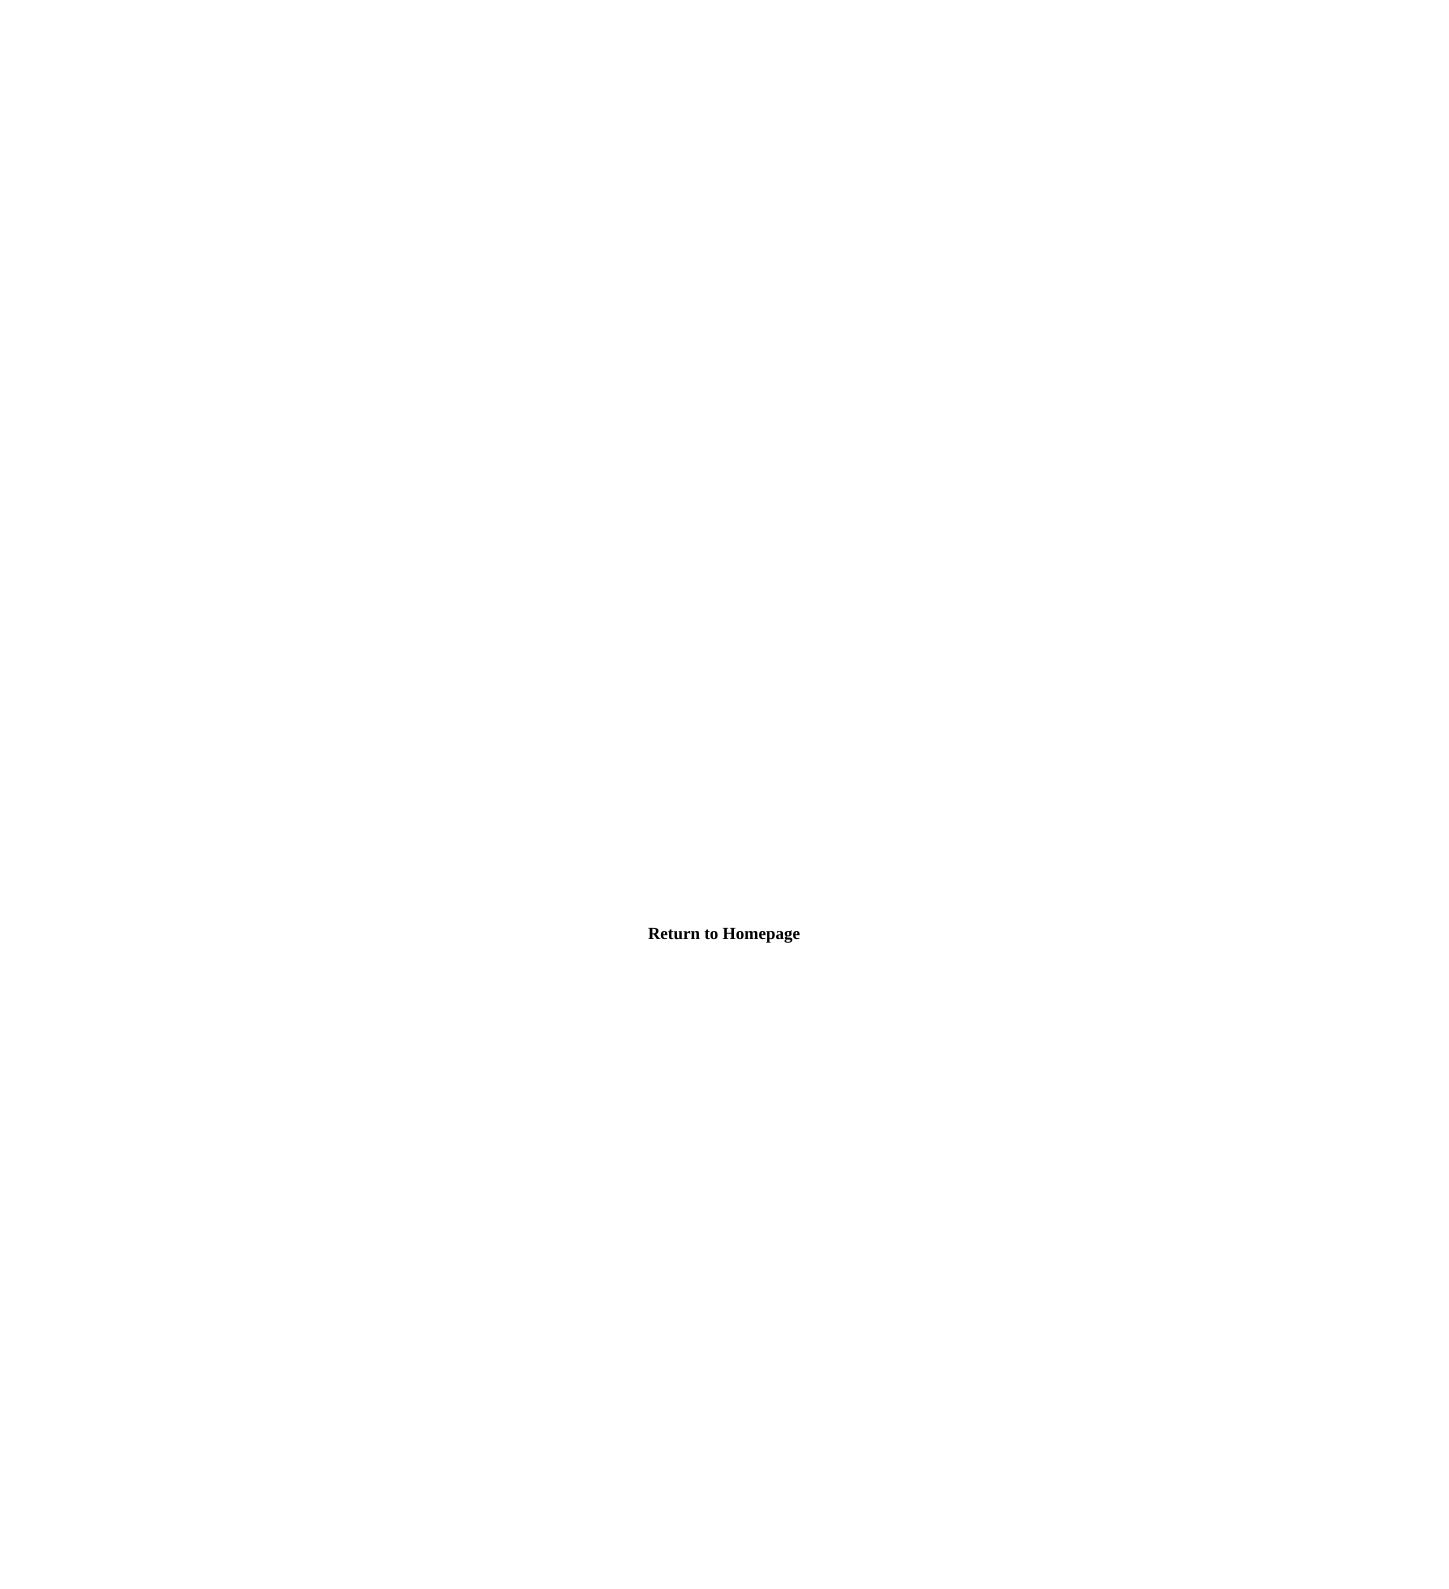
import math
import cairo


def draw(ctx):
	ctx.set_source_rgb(1, 1, 1)
	ctx.paint()
	ctx.select_font_face('Liberation Serif', cairo.FONT_SLANT_NORMAL, cairo.FONT_WEIGHT_BOLD)
	ctx.set_font_size(17)
	ctx.set_source_rgb(0, 0, 0)
	ctx.move_to(648, 939)
	ctx.show_text('Return to Homepage')


surface = cairo.ImageSurface(cairo.FORMAT_RGB24, 1449, 1589)
ctx = cairo.Context(surface)
options = cairo.FontOptions()
options.set_hint_metrics(cairo.HINT_METRICS_OFF)
options.set_hint_style(cairo.HINT_STYLE_NONE)
ctx.set_font_options(options)
ctx.set_miter_limit(4)
draw(ctx)
surface.write_to_png('image.png')
